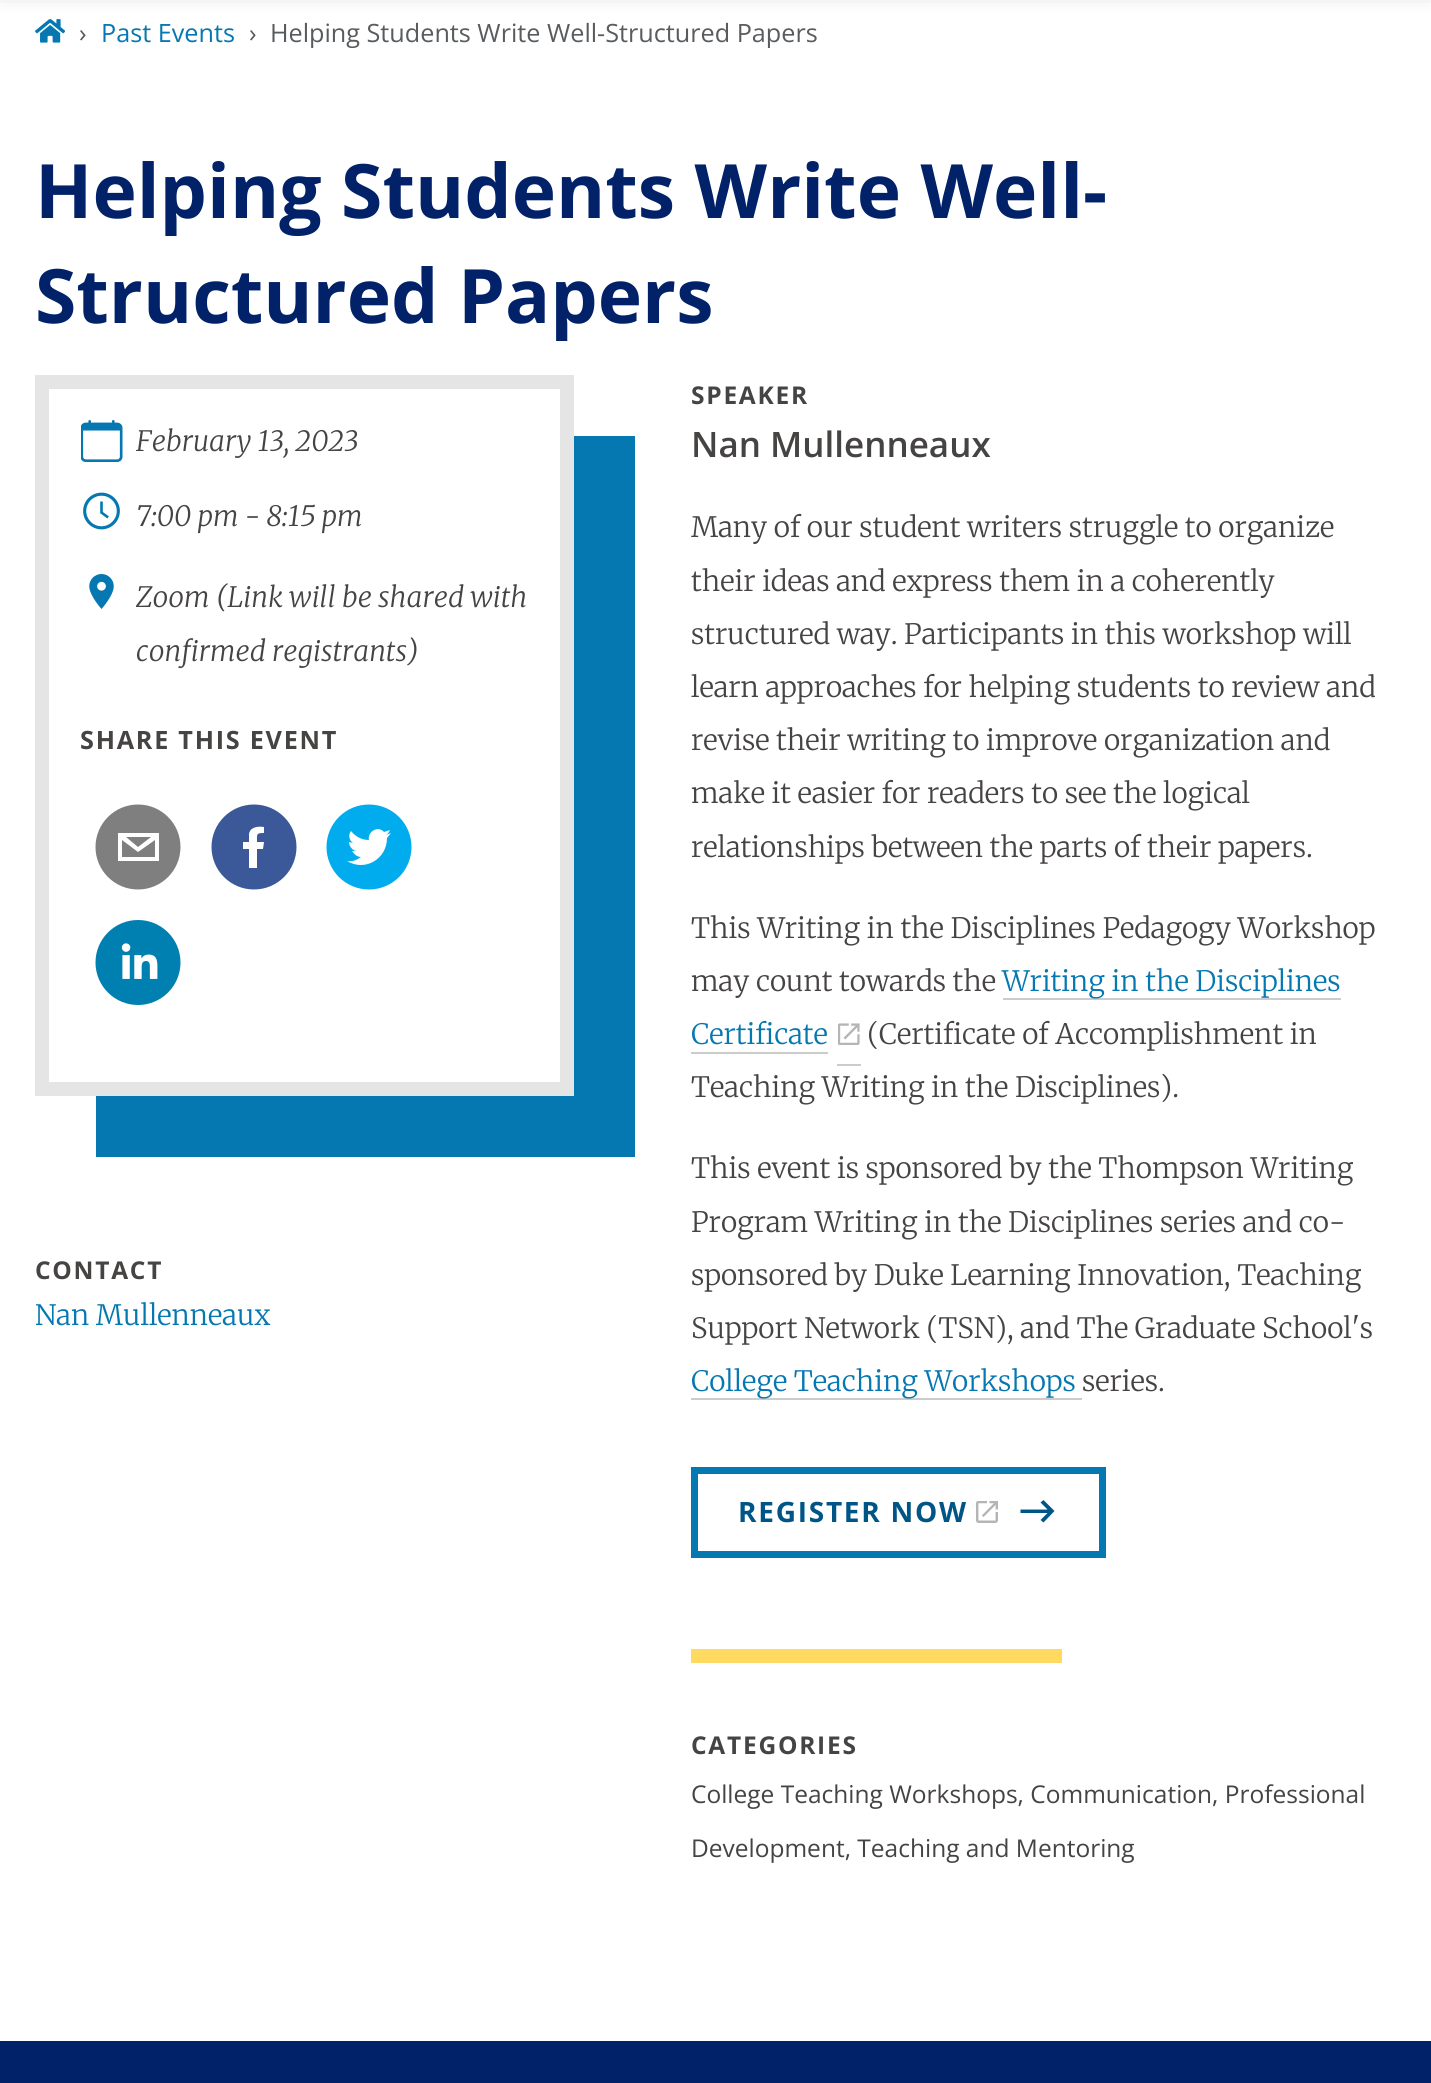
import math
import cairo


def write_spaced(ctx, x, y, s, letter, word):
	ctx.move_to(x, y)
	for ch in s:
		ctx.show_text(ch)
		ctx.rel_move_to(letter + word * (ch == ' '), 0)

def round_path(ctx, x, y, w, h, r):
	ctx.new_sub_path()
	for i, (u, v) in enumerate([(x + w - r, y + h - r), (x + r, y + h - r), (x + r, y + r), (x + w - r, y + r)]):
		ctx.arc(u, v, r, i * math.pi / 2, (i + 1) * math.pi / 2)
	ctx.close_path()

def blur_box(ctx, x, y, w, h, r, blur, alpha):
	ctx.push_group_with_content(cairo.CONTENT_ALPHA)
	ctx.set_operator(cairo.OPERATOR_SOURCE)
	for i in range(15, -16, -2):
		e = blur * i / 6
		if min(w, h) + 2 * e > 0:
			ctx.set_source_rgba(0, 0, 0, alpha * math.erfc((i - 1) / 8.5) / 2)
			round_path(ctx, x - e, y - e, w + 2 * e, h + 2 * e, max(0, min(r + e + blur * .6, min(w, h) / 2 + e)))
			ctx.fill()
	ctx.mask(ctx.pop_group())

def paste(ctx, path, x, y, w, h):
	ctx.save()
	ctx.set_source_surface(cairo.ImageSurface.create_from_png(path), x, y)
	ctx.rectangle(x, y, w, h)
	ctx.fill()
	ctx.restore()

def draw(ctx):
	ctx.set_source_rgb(1, 1, 1)
	ctx.paint()
	paste(ctx, 'media/1.png', 35, 19, 30, 24)
	ctx.set_source_rgb(0, 0, 0)
	blur_box(ctx, 0, -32, 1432, 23, 0, 10.5, 0.25)
	ctx.select_font_face('Open Sans')
	ctx.set_font_size(25.2)
	ctx.set_source_rgb(0.349, 0.361, 0.373)
	ctx.move_to(79, 42)
	ctx.show_text('›')
	ctx.set_source_rgb(0.02, 0.467, 0.694)
	ctx.move_to(101, 42)
	ctx.show_text('Past Events')
	ctx.set_source_rgb(0.349, 0.361, 0.373)
	ctx.move_to(249, 42)
	ctx.show_text('›')
	ctx.move_to(270, 42)
	ctx.show_text('Helping Students Write Well-Structured Papers')
	ctx.select_font_face('Open Sans', cairo.FONT_SLANT_NORMAL, cairo.FONT_WEIGHT_BOLD)
	ctx.set_font_size(75)
	ctx.set_source_rgb(0.004, 0.129, 0.412)
	ctx.move_to(35, 218)
	ctx.show_text('Helping Students Write Well-')
	ctx.move_to(35, 323)
	ctx.show_text('Structured Papers')
	ctx.set_source_rgb(0.02, 0.467, 0.694)
	ctx.new_path()
	ctx.move_to(96, 1096)
	ctx.line_to(96, 1157)
	ctx.line_to(635, 1157)
	ctx.line_to(635, 436)
	ctx.line_to(574, 436)
	ctx.line_to(574, 1096)
	ctx.close_path()
	ctx.fill()
	ctx.rectangle(42, 382, 525, 707)
	ctx.set_source_rgb(0.898, 0.898, 0.898)
	ctx.set_line_width(14)
	ctx.stroke()
	paste(ctx, 'media/2.png', 81, 420, 42, 42)
	ctx.select_font_face('Merriweather Light', cairo.FONT_SLANT_ITALIC)
	ctx.set_font_size(28)
	ctx.set_source_rgb(0.275, 0.263, 0.263)
	ctx.move_to(136, 451)
	ctx.show_text('February 13, 2023')
	paste(ctx, 'media/3.png', 83, 492, 37, 38)
	ctx.move_to(136, 526)
	ctx.show_text('7:00 pm - 8:15 pm')
	paste(ctx, 'media/4.png', 89, 574, 25, 35)
	ctx.move_to(136, 607)
	ctx.show_text('Zoom (Link will be shared with')
	ctx.move_to(136, 661)
	ctx.show_text('confirmed registrants)')
	ctx.select_font_face('Open Sans', cairo.FONT_SLANT_NORMAL, cairo.FONT_WEIGHT_BOLD)
	ctx.set_font_size(25.2)
	write_spaced(ctx, 80, 749, 'SHARE THIS EVENT', 1.75, 0)
	ctx.set_source_rgb(0.498, 0.498, 0.498)
	ctx.new_path()
	ctx.arc(138, 847, 42.5, 0, 2 * math.pi)
	ctx.fill()
	ctx.set_source_rgb(1, 1, 1)
	ctx.new_path()
	ctx.move_to(118, 833)
	ctx.line_to(118, 861)
	ctx.line_to(159, 861)
	ctx.line_to(159, 833)
	ctx.close_path()
	ctx.move_to(151, 837)
	ctx.line_to(138, 847)
	ctx.line_to(126, 837)
	ctx.close_path()
	ctx.move_to(122, 857)
	ctx.line_to(122, 840)
	ctx.line_to(138, 852)
	ctx.line_to(155, 840)
	ctx.line_to(155, 857)
	ctx.close_path()
	ctx.fill()
	ctx.set_source_rgb(0.231, 0.349, 0.596)
	ctx.arc(254, 847, 42.5, 0, 2 * math.pi)
	ctx.fill()
	ctx.set_source_rgb(1, 1, 1)
	ctx.new_path()
	ctx.move_to(257, 868)
	ctx.line_to(257, 849)
	ctx.line_to(263, 849)
	ctx.line_to(264, 842)
	ctx.line_to(257, 842)
	ctx.curve_to(257, 834, 256, 833, 264, 833)
	ctx.line_to(264, 827)
	ctx.curve_to(258, 826, 250, 827, 249, 834)
	ctx.line_to(249, 842)
	ctx.line_to(243, 842)
	ctx.line_to(243, 849)
	ctx.line_to(249, 849)
	ctx.line_to(249, 868)
	ctx.close_path()
	ctx.fill()
	ctx.set_source_rgb(0, 0.675, 0.929)
	ctx.arc(369, 847, 42.5, 0, 2 * math.pi)
	ctx.fill()
	ctx.set_source_rgb(1, 1, 1)
	ctx.new_path()
	ctx.move_to(391, 833)
	ctx.line_to(386, 835)
	ctx.curve_to(388, 834, 389, 832, 390, 830)
	ctx.line_to(384, 832)
	ctx.curve_to(378, 825, 367, 832, 369, 840)
	ctx.curve_to(361, 840, 355, 836, 351, 831)
	ctx.curve_to(348, 835, 349, 840, 353, 843)
	ctx.line_to(349, 842)
	ctx.curve_to(349, 846, 352, 850, 356, 851)
	ctx.line_to(352, 851)
	ctx.curve_to(354, 854, 357, 857, 361, 857)
	ctx.curve_to(357, 860, 352, 862, 347, 861)
	ctx.curve_to(365, 872, 387, 859, 387, 838)
	ctx.close_path()
	ctx.fill()
	paste(ctx, 'media/5.png', 95, 920, 86, 85)
	ctx.set_font_size(24.5)
	ctx.set_source_rgb(0.275, 0.263, 0.263)
	write_spaced(ctx, 35, 1279, 'CONTACT', 1.75, 0)
	ctx.select_font_face('Merriweather Light')
	ctx.set_font_size(28)
	ctx.set_source_rgb(0.02, 0.467, 0.694)
	ctx.move_to(35, 1325)
	ctx.show_text('Nan Mullenneaux')
	ctx.select_font_face('Open Sans', cairo.FONT_SLANT_NORMAL, cairo.FONT_WEIGHT_BOLD)
	ctx.set_font_size(24.5)
	ctx.set_source_rgb(0.275, 0.263, 0.263)
	write_spaced(ctx, 691, 404, 'SPEAKER', 1.75, 0)
	ctx.select_font_face('Open Sans SemiBold')
	ctx.set_font_size(35)
	ctx.move_to(691, 457)
	ctx.show_text('Nan Mullenneaux')
	ctx.select_font_face('Merriweather Light')
	ctx.set_font_size(28)
	for x, y, s in [
		(691, 537, 'Many of our student writers struggle to organize'),
		(691, 591, 'their ideas and express them in a coherently'),
		(691, 644, 'structured way. Participants in this workshop will'),
		(691, 697, 'learn approaches for helping students to review and'),
		(691, 750, 'revise their writing to improve organization and'),
		(691, 803, 'make it easier for readers to see the logical'),
		(691, 857, 'relationships between the parts of their papers.'),
		(691, 938, 'This Writing in the Disciplines Pedagogy Workshop'),
		(691, 991, 'may count towards the'),
	]:
		ctx.move_to(x, y)
		ctx.show_text(s)
	ctx.set_source_rgb(0.8, 0.8, 0.8)
	ctx.rectangle(1003, 998, 338, 2)
	ctx.rectangle(691, 1052, 137, 2)
	ctx.rectangle(837, 1064, 24, 2)
	ctx.fill()
	ctx.set_source_rgb(0.02, 0.467, 0.694)
	ctx.move_to(1002, 991)
	ctx.show_text('Writing in the Disciplines')
	ctx.move_to(691, 1044)
	ctx.show_text('Certificate')
	paste(ctx, 'media/6.png', 838, 1023, 22, 22)
	ctx.set_source_rgb(0.275, 0.263, 0.263)
	for x, y, s in [
		(867, 1044, '(Certificate of Accomplishment in'),
		(691, 1097, 'Teaching Writing in the Disciplines).'),
		(691, 1178, 'This event is sponsored by the Thompson Writing'),
		(691, 1232, 'Program Writing in the Disciplines series and co-'),
		(691, 1285, 'sponsored by Duke Learning Innovation, Teaching'),
		(691, 1338, 'Support Network (TSN), and The Graduate School\'s'),
	]:
		ctx.move_to(x, y)
		ctx.show_text(s)
	ctx.set_source_rgb(0.8, 0.8, 0.8)
	ctx.rectangle(691, 1398, 391, 2)
	ctx.fill()
	ctx.set_source_rgb(0.02, 0.467, 0.694)
	ctx.move_to(691, 1391)
	ctx.show_text('College Teaching Workshops')
	ctx.set_source_rgb(0.275, 0.263, 0.263)
	ctx.move_to(1082, 1391)
	ctx.show_text('series.')
	ctx.rectangle(694.5, 1470.5, 408, 84)
	ctx.set_source_rgb(0.02, 0.467, 0.694)
	ctx.set_line_width(7)
	ctx.stroke()
	ctx.select_font_face('Open Sans', cairo.FONT_SLANT_NORMAL, cairo.FONT_WEIGHT_BOLD)
	ctx.set_source_rgb(0, 0.333, 0.529)
	write_spaced(ctx, 738, 1522, 'REGISTER NOW', 1.75, 0)
	paste(ctx, 'media/7.png', 976, 1501, 22, 22)
	ctx.new_path()
	ctx.move_to(1020.5, 1513)
	ctx.line_to(1047.5, 1513)
	ctx.line_to(1040.5, 1520)
	ctx.line_to(1043.5, 1522.5)
	ctx.line_to(1054.5, 1511)
	ctx.line_to(1043.5, 1500)
	ctx.line_to(1040.5, 1502.5)
	ctx.line_to(1047.5, 1509.5)
	ctx.line_to(1020.5, 1509.5)
	ctx.close_path()
	ctx.fill()
	ctx.set_source_rgb(1, 0.851, 0.376)
	ctx.rectangle(691, 1649, 371, 14)
	ctx.fill()
	ctx.set_font_size(24.5)
	ctx.set_source_rgb(0.275, 0.263, 0.263)
	write_spaced(ctx, 691, 1754, 'CATEGORIES', 1.75, 0)
	ctx.select_font_face('Open Sans')
	ctx.move_to(691, 1803)
	ctx.show_text('College Teaching Workshops, Communication, Professional')
	ctx.move_to(691, 1857)
	ctx.show_text('Development, Teaching and Mentoring')
	ctx.set_source_rgb(0.004, 0.129, 0.412)
	ctx.rectangle(0, 2041, 1431, 42)
	ctx.fill()


surface = cairo.ImageSurface(cairo.FORMAT_RGB24, 1431, 2083)
ctx = cairo.Context(surface)
options = cairo.FontOptions()
options.set_hint_metrics(cairo.HINT_METRICS_OFF)
options.set_hint_style(cairo.HINT_STYLE_NONE)
ctx.set_font_options(options)
ctx.set_miter_limit(4)
draw(ctx)
surface.write_to_png('image.png')
